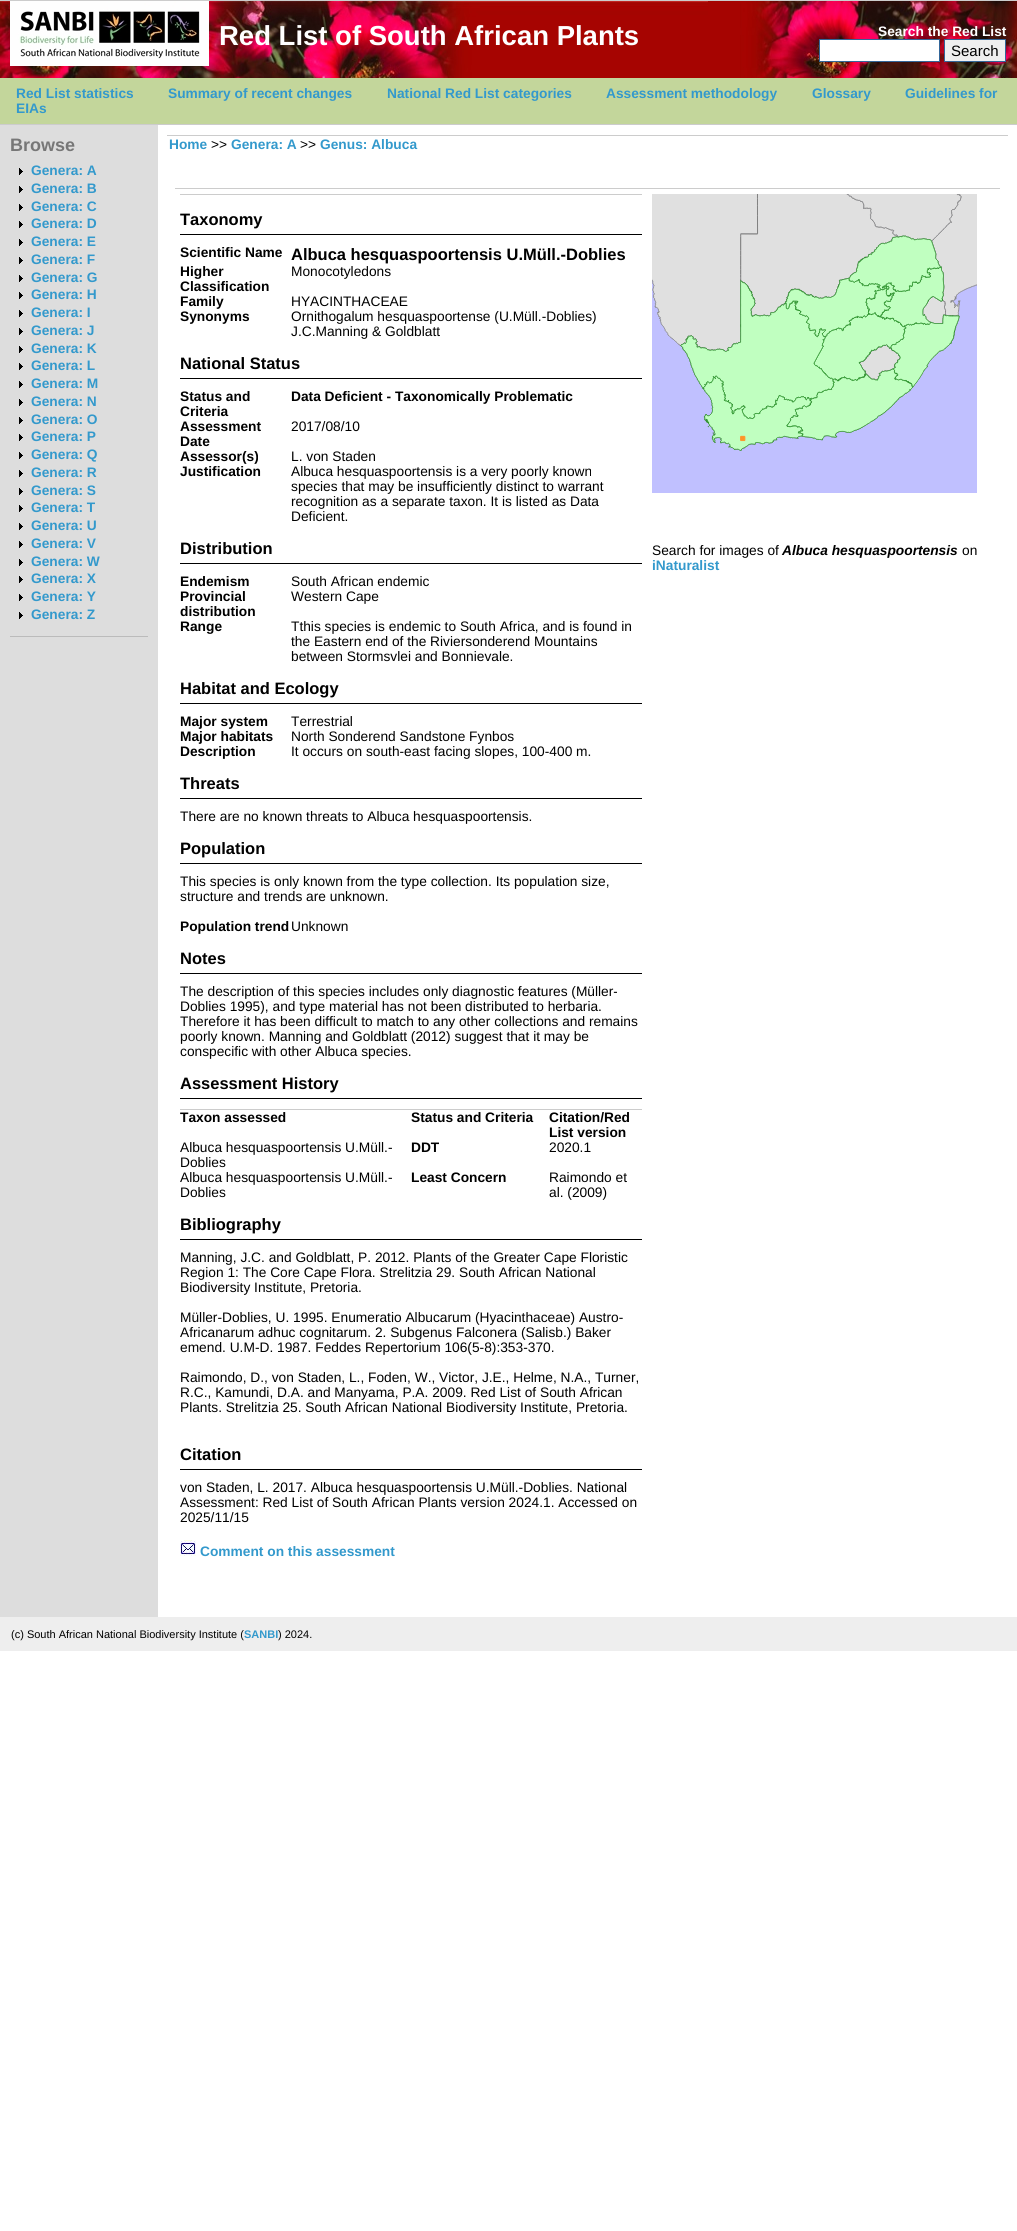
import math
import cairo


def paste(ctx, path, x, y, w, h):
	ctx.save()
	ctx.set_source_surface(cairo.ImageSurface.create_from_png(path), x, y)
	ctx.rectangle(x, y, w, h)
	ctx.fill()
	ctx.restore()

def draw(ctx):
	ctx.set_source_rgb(1, 1, 1)
	ctx.paint()
	paste(ctx, 'media/1.png', 0, 0, 1017, 78)
	paste(ctx, 'media/2.png', 10, 1, 199, 65)
	ctx.select_font_face('Liberation Sans', cairo.FONT_SLANT_NORMAL, cairo.FONT_WEIGHT_BOLD)
	ctx.set_font_size(27.5)
	ctx.set_source_rgb(1, 1, 1)
	ctx.move_to(219, 45)
	ctx.show_text('Red List of South African Plants')
	paste(ctx, 'media/3.png', 708, 1, 309, 77)
	ctx.set_font_size(13.75)
	ctx.move_to(878, 36)
	ctx.show_text('Search the Red List')
	ctx.rectangle(819.5, 39.5, 120, 22)
	ctx.fill_preserve()
	ctx.set_source_rgb(0.2, 0.4, 0.6)
	ctx.set_line_width(1)
	ctx.stroke()
	ctx.set_source_rgb(0.937, 0.937, 0.937)
	ctx.rectangle(944.5, 39.5, 61, 22)
	ctx.fill_preserve()
	ctx.set_source_rgb(0.2, 0.4, 0.6)
	ctx.stroke()
	ctx.select_font_face('Liberation Sans')
	ctx.set_font_size(15)
	ctx.set_source_rgb(0, 0, 0)
	ctx.move_to(951, 56)
	ctx.show_text('Search')
	ctx.set_source_rgb(0.765, 0.839, 0.608)
	ctx.rectangle(0, 78, 1017, 46)
	ctx.fill()
	ctx.select_font_face('Liberation Sans', cairo.FONT_SLANT_NORMAL, cairo.FONT_WEIGHT_BOLD)
	ctx.set_font_size(13.75)
	ctx.set_source_rgb(0.2, 0.6, 0.8)
	for x, y, s in [
		(16, 98, 'Red List statistics'),
		(168, 98, 'Summary of recent changes'),
		(387, 98, 'National Red List categories'),
		(606, 98, 'Assessment methodology'),
		(812, 98, 'Glossary'),
		(905, 98, 'Guidelines for'),
		(16, 113, 'EIAs'),
	]:
		ctx.move_to(x, y)
		ctx.show_text(s)
	ctx.set_source_rgb(0.8, 0.8, 0.8)
	ctx.rectangle(0, 124, 1017, 1)
	ctx.fill()
	ctx.set_source_rgb(0.867, 0.867, 0.867)
	ctx.rectangle(0, 125, 158, 1492)
	ctx.fill()
	ctx.set_source_rgb(0.733, 0.733, 0.733)
	ctx.rectangle(10, 636, 138, 1)
	ctx.fill()
	ctx.set_font_size(18)
	ctx.set_source_rgb(0.467, 0.467, 0.467)
	ctx.move_to(10, 151)
	ctx.show_text('Browse')
	paste(ctx, 'media/4.png', 19, 168, 4, 7)
	ctx.set_font_size(13.75)
	ctx.set_source_rgb(0.2, 0.6, 0.8)
	ctx.move_to(31, 175)
	ctx.show_text('Genera: A')
	paste(ctx, 'media/4.png', 19, 186, 4, 7)
	ctx.move_to(31, 193)
	ctx.show_text('Genera: B')
	paste(ctx, 'media/4.png', 19, 204, 4, 7)
	ctx.move_to(31, 211)
	ctx.show_text('Genera: C')
	paste(ctx, 'media/4.png', 19, 221, 4, 7)
	ctx.move_to(31, 228)
	ctx.show_text('Genera: D')
	paste(ctx, 'media/4.png', 19, 239, 4, 7)
	ctx.move_to(31, 246)
	ctx.show_text('Genera: E')
	paste(ctx, 'media/4.png', 19, 257, 4, 7)
	ctx.move_to(31, 264)
	ctx.show_text('Genera: F')
	paste(ctx, 'media/4.png', 19, 275, 4, 7)
	ctx.move_to(31, 282)
	ctx.show_text('Genera: G')
	paste(ctx, 'media/4.png', 19, 292, 4, 7)
	ctx.move_to(31, 299)
	ctx.show_text('Genera: H')
	paste(ctx, 'media/4.png', 19, 310, 4, 7)
	ctx.move_to(31, 317)
	ctx.show_text('Genera: I')
	paste(ctx, 'media/4.png', 19, 328, 4, 7)
	ctx.move_to(31, 335)
	ctx.show_text('Genera: J')
	paste(ctx, 'media/4.png', 19, 346, 4, 7)
	ctx.move_to(31, 353)
	ctx.show_text('Genera: K')
	paste(ctx, 'media/4.png', 19, 363, 4, 7)
	ctx.move_to(31, 370)
	ctx.show_text('Genera: L')
	paste(ctx, 'media/4.png', 19, 381, 4, 7)
	ctx.move_to(31, 388)
	ctx.show_text('Genera: M')
	paste(ctx, 'media/4.png', 19, 399, 4, 7)
	ctx.move_to(31, 406)
	ctx.show_text('Genera: N')
	paste(ctx, 'media/4.png', 19, 417, 4, 7)
	ctx.move_to(31, 424)
	ctx.show_text('Genera: O')
	paste(ctx, 'media/4.png', 19, 434, 4, 7)
	ctx.move_to(31, 441)
	ctx.show_text('Genera: P')
	paste(ctx, 'media/4.png', 19, 452, 4, 7)
	ctx.move_to(31, 459)
	ctx.show_text('Genera: Q')
	paste(ctx, 'media/4.png', 19, 470, 4, 7)
	ctx.move_to(31, 477)
	ctx.show_text('Genera: R')
	paste(ctx, 'media/4.png', 19, 488, 4, 7)
	ctx.move_to(31, 495)
	ctx.show_text('Genera: S')
	paste(ctx, 'media/4.png', 19, 505, 4, 7)
	ctx.move_to(31, 512)
	ctx.show_text('Genera: T')
	paste(ctx, 'media/4.png', 19, 523, 4, 7)
	ctx.move_to(31, 530)
	ctx.show_text('Genera: U')
	paste(ctx, 'media/4.png', 19, 541, 4, 7)
	ctx.move_to(31, 548)
	ctx.show_text('Genera: V')
	paste(ctx, 'media/4.png', 19, 559, 4, 7)
	ctx.move_to(31, 566)
	ctx.show_text('Genera: W')
	paste(ctx, 'media/4.png', 19, 576, 4, 7)
	ctx.move_to(31, 583)
	ctx.show_text('Genera: X')
	paste(ctx, 'media/4.png', 19, 594, 4, 7)
	ctx.move_to(31, 601)
	ctx.show_text('Genera: Y')
	paste(ctx, 'media/4.png', 19, 612, 4, 7)
	ctx.move_to(31, 619)
	ctx.show_text('Genera: Z')
	ctx.set_source_rgb(0.8, 0.8, 0.8)
	ctx.rectangle(167, 135, 841, 1)
	ctx.fill()
	ctx.set_source_rgb(0.2, 0.6, 0.8)
	ctx.move_to(169, 149)
	ctx.show_text('Home')
	ctx.select_font_face('Liberation Sans')
	ctx.set_source_rgb(0, 0, 0)
	ctx.move_to(211, 149)
	ctx.show_text('>>')
	ctx.select_font_face('Liberation Sans', cairo.FONT_SLANT_NORMAL, cairo.FONT_WEIGHT_BOLD)
	ctx.set_source_rgb(0.2, 0.6, 0.8)
	ctx.move_to(231, 149)
	ctx.show_text('Genera: A')
	ctx.select_font_face('Liberation Sans')
	ctx.set_source_rgb(0, 0, 0)
	ctx.move_to(300, 149)
	ctx.show_text('>>')
	ctx.select_font_face('Liberation Sans', cairo.FONT_SLANT_NORMAL, cairo.FONT_WEIGHT_BOLD)
	ctx.set_source_rgb(0.2, 0.6, 0.8)
	ctx.move_to(320, 149)
	ctx.show_text('Genus: Albuca')
	ctx.set_source_rgb(0.8, 0.8, 0.8)
	ctx.rectangle(175, 188, 825, 1)
	ctx.rectangle(180, 194, 462, 1)
	ctx.fill()
	ctx.set_source_rgb(0, 0, 0)
	ctx.rectangle(180, 234, 462, 1)
	ctx.fill()
	ctx.set_font_size(16.5)
	ctx.move_to(180, 225)
	ctx.show_text('Taxonomy')
	ctx.set_font_size(13.75)
	ctx.move_to(180, 257)
	ctx.show_text('Scientific Name')
	ctx.set_font_size(16.5)
	ctx.move_to(291, 260)
	ctx.show_text('Albuca hesquaspoortensis U.Müll.-Doblies')
	ctx.set_font_size(13.75)
	ctx.move_to(180, 276)
	ctx.show_text('Higher')
	ctx.move_to(180, 291)
	ctx.show_text('Classification')
	ctx.select_font_face('Liberation Sans')
	ctx.move_to(291, 276)
	ctx.show_text('Monocotyledons')
	ctx.select_font_face('Liberation Sans', cairo.FONT_SLANT_NORMAL, cairo.FONT_WEIGHT_BOLD)
	ctx.move_to(180, 306)
	ctx.show_text('Family')
	ctx.select_font_face('Liberation Sans')
	ctx.move_to(291, 306)
	ctx.show_text('HYACINTHACEAE')
	ctx.select_font_face('Liberation Sans', cairo.FONT_SLANT_NORMAL, cairo.FONT_WEIGHT_BOLD)
	ctx.move_to(180, 321)
	ctx.show_text('Synonyms')
	ctx.select_font_face('Liberation Sans')
	ctx.move_to(291, 321)
	ctx.show_text('Ornithogalum hesquaspoortense (U.Müll.-Doblies)')
	ctx.move_to(291, 336)
	ctx.show_text('J.C.Manning & Goldblatt')
	ctx.rectangle(180, 378, 462, 1)
	ctx.fill()
	ctx.select_font_face('Liberation Sans', cairo.FONT_SLANT_NORMAL, cairo.FONT_WEIGHT_BOLD)
	ctx.set_font_size(16.5)
	ctx.move_to(180, 369)
	ctx.show_text('National Status')
	ctx.set_font_size(13.75)
	for x, y, s in [
		(180, 401, 'Status and'),
		(180, 416, 'Criteria'),
		(291, 401, 'Data Deficient - Taxonomically Problematic'),
		(180, 431, 'Assessment'),
		(180, 446, 'Date'),
	]:
		ctx.move_to(x, y)
		ctx.show_text(s)
	ctx.select_font_face('Liberation Sans')
	ctx.move_to(291, 431)
	ctx.show_text('2017/08/10')
	ctx.select_font_face('Liberation Sans', cairo.FONT_SLANT_NORMAL, cairo.FONT_WEIGHT_BOLD)
	ctx.move_to(180, 461)
	ctx.show_text('Assessor(s)')
	ctx.select_font_face('Liberation Sans')
	ctx.move_to(291, 461)
	ctx.show_text('L. von Staden')
	ctx.select_font_face('Liberation Sans', cairo.FONT_SLANT_NORMAL, cairo.FONT_WEIGHT_BOLD)
	ctx.move_to(180, 476)
	ctx.show_text('Justification')
	ctx.select_font_face('Liberation Sans')
	for x, y, s in [
		(291, 476, 'Albuca hesquaspoortensis is a very poorly known'),
		(291, 491, 'species that may be insufficiently distinct to warrant'),
		(291, 506, 'recognition as a separate taxon. It is listed as Data'),
		(291, 521, 'Deficient.'),
	]:
		ctx.move_to(x, y)
		ctx.show_text(s)
	ctx.rectangle(180, 563, 462, 1)
	ctx.fill()
	ctx.select_font_face('Liberation Sans', cairo.FONT_SLANT_NORMAL, cairo.FONT_WEIGHT_BOLD)
	ctx.set_font_size(16.5)
	ctx.move_to(180, 554)
	ctx.show_text('Distribution')
	ctx.set_font_size(13.75)
	ctx.move_to(180, 586)
	ctx.show_text('Endemism')
	ctx.select_font_face('Liberation Sans')
	ctx.move_to(291, 586)
	ctx.show_text('South African endemic')
	ctx.select_font_face('Liberation Sans', cairo.FONT_SLANT_NORMAL, cairo.FONT_WEIGHT_BOLD)
	ctx.move_to(180, 601)
	ctx.show_text('Provincial')
	ctx.move_to(180, 616)
	ctx.show_text('distribution')
	ctx.select_font_face('Liberation Sans')
	ctx.move_to(291, 601)
	ctx.show_text('Western Cape')
	ctx.select_font_face('Liberation Sans', cairo.FONT_SLANT_NORMAL, cairo.FONT_WEIGHT_BOLD)
	ctx.move_to(180, 631)
	ctx.show_text('Range')
	ctx.select_font_face('Liberation Sans')
	for x, y, s in [
		(291, 631, 'Tthis species is endemic to South Africa, and is found in'),
		(291, 646, 'the Eastern end of the Riviersonderend Mountains'),
		(291, 661, 'between Stormsvlei and Bonnievale.'),
	]:
		ctx.move_to(x, y)
		ctx.show_text(s)
	ctx.rectangle(180, 703, 462, 1)
	ctx.fill()
	ctx.select_font_face('Liberation Sans', cairo.FONT_SLANT_NORMAL, cairo.FONT_WEIGHT_BOLD)
	ctx.set_font_size(16.5)
	ctx.move_to(180, 694)
	ctx.show_text('Habitat and Ecology')
	ctx.set_font_size(13.75)
	ctx.move_to(180, 726)
	ctx.show_text('Major system')
	ctx.select_font_face('Liberation Sans')
	ctx.move_to(291, 726)
	ctx.show_text('Terrestrial')
	ctx.select_font_face('Liberation Sans', cairo.FONT_SLANT_NORMAL, cairo.FONT_WEIGHT_BOLD)
	ctx.move_to(180, 741)
	ctx.show_text('Major habitats')
	ctx.select_font_face('Liberation Sans')
	ctx.move_to(291, 741)
	ctx.show_text('North Sonderend Sandstone Fynbos')
	ctx.select_font_face('Liberation Sans', cairo.FONT_SLANT_NORMAL, cairo.FONT_WEIGHT_BOLD)
	ctx.move_to(180, 756)
	ctx.show_text('Description')
	ctx.select_font_face('Liberation Sans')
	ctx.move_to(291, 756)
	ctx.show_text('It occurs on south-east facing slopes, 100-400 m.')
	ctx.rectangle(180, 798, 462, 1)
	ctx.fill()
	ctx.select_font_face('Liberation Sans', cairo.FONT_SLANT_NORMAL, cairo.FONT_WEIGHT_BOLD)
	ctx.set_font_size(16.5)
	ctx.move_to(180, 789)
	ctx.show_text('Threats')
	ctx.select_font_face('Liberation Sans')
	ctx.set_font_size(13.75)
	ctx.move_to(180, 821)
	ctx.show_text('There are no known threats to Albuca hesquaspoortensis.')
	ctx.rectangle(180, 863, 462, 1)
	ctx.fill()
	ctx.select_font_face('Liberation Sans', cairo.FONT_SLANT_NORMAL, cairo.FONT_WEIGHT_BOLD)
	ctx.set_font_size(16.5)
	ctx.move_to(180, 854)
	ctx.show_text('Population')
	ctx.select_font_face('Liberation Sans')
	ctx.set_font_size(13.75)
	ctx.move_to(180, 886)
	ctx.show_text('This species is only known from the type collection. Its population size,')
	ctx.move_to(180, 901)
	ctx.show_text('structure and trends are unknown.')
	ctx.select_font_face('Liberation Sans', cairo.FONT_SLANT_NORMAL, cairo.FONT_WEIGHT_BOLD)
	ctx.move_to(180, 931)
	ctx.show_text('Population trend')
	ctx.select_font_face('Liberation Sans')
	ctx.move_to(291, 931)
	ctx.show_text('Unknown')
	ctx.rectangle(180, 973, 462, 1)
	ctx.fill()
	ctx.select_font_face('Liberation Sans', cairo.FONT_SLANT_NORMAL, cairo.FONT_WEIGHT_BOLD)
	ctx.set_font_size(16.5)
	ctx.move_to(180, 964)
	ctx.show_text('Notes')
	ctx.select_font_face('Liberation Sans')
	ctx.set_font_size(13.75)
	for x, y, s in [
		(180, 996, 'The description of this species includes only diagnostic features (Müller-'),
		(180, 1011, 'Doblies 1995), and type material has not been distributed to herbaria.'),
		(180, 1026, 'Therefore it has been difficult to match to any other collections and remains'),
		(180, 1041, 'poorly known. Manning and Goldblatt (2012) suggest that it may be'),
		(180, 1056, 'conspecific with other Albuca species.'),
	]:
		ctx.move_to(x, y)
		ctx.show_text(s)
	ctx.rectangle(180, 1098, 462, 1)
	ctx.fill()
	ctx.select_font_face('Liberation Sans', cairo.FONT_SLANT_NORMAL, cairo.FONT_WEIGHT_BOLD)
	ctx.set_font_size(16.5)
	ctx.move_to(180, 1089)
	ctx.show_text('Assessment History')
	ctx.set_source_rgb(0.8, 0.8, 0.8)
	ctx.rectangle(180, 1109, 462, 1)
	ctx.fill()
	ctx.set_font_size(13.75)
	ctx.set_source_rgb(0, 0, 0)
	for x, y, s in [
		(180, 1122, 'Taxon assessed'),
		(411, 1122, 'Status and Criteria'),
		(549, 1122, 'Citation/Red'),
		(549, 1137, 'List version'),
	]:
		ctx.move_to(x, y)
		ctx.show_text(s)
	ctx.select_font_face('Liberation Sans')
	ctx.move_to(180, 1152)
	ctx.show_text('Albuca hesquaspoortensis U.Müll.-')
	ctx.move_to(180, 1167)
	ctx.show_text('Doblies')
	ctx.select_font_face('Liberation Sans', cairo.FONT_SLANT_NORMAL, cairo.FONT_WEIGHT_BOLD)
	ctx.move_to(411, 1152)
	ctx.show_text('DDT')
	ctx.select_font_face('Liberation Sans')
	for x, y, s in [
		(549, 1152, '2020.1'),
		(180, 1182, 'Albuca hesquaspoortensis U.Müll.-'),
		(180, 1197, 'Doblies'),
	]:
		ctx.move_to(x, y)
		ctx.show_text(s)
	ctx.select_font_face('Liberation Sans', cairo.FONT_SLANT_NORMAL, cairo.FONT_WEIGHT_BOLD)
	ctx.move_to(411, 1182)
	ctx.show_text('Least Concern')
	ctx.select_font_face('Liberation Sans')
	ctx.move_to(549, 1182)
	ctx.show_text('Raimondo et')
	ctx.move_to(549, 1197)
	ctx.show_text('al. (2009)')
	ctx.rectangle(180, 1239, 462, 1)
	ctx.fill()
	ctx.select_font_face('Liberation Sans', cairo.FONT_SLANT_NORMAL, cairo.FONT_WEIGHT_BOLD)
	ctx.set_font_size(16.5)
	ctx.move_to(180, 1230)
	ctx.show_text('Bibliography')
	ctx.select_font_face('Liberation Sans')
	ctx.set_font_size(13.75)
	for x, y, s in [
		(180, 1262, 'Manning, J.C. and Goldblatt, P. 2012. Plants of the Greater Cape Floristic'),
		(180, 1277, 'Region 1: The Core Cape Flora. Strelitzia 29. South African National'),
		(180, 1292, 'Biodiversity Institute, Pretoria.'),
		(180, 1322, 'Müller-Doblies, U. 1995. Enumeratio Albucarum (Hyacinthaceae) Austro-'),
		(180, 1337, 'Africanarum adhuc cognitarum. 2. Subgenus Falconera (Salisb.) Baker'),
		(180, 1352, 'emend. U.M-D. 1987. Feddes Repertorium 106(5-8):353-370.'),
		(180, 1382, 'Raimondo, D., von Staden, L., Foden, W., Victor, J.E., Helme, N.A., Turner,'),
		(180, 1397, 'R.C., Kamundi, D.A. and Manyama, P.A. 2009. Red List of South African'),
		(180, 1412, 'Plants. Strelitzia 25. South African National Biodiversity Institute, Pretoria.'),
	]:
		ctx.move_to(x, y)
		ctx.show_text(s)
	ctx.rectangle(180, 1469, 462, 1)
	ctx.fill()
	ctx.select_font_face('Liberation Sans', cairo.FONT_SLANT_NORMAL, cairo.FONT_WEIGHT_BOLD)
	ctx.set_font_size(16.5)
	ctx.move_to(180, 1460)
	ctx.show_text('Citation')
	ctx.select_font_face('Liberation Sans')
	ctx.set_font_size(13.75)
	for x, y, s in [
		(180, 1492, 'von Staden, L. 2017. Albuca hesquaspoortensis U.Müll.-Doblies. National'),
		(180, 1507, 'Assessment: Red List of South African Plants version 2024.1. Accessed on'),
		(180, 1522, '2025/11/15'),
	]:
		ctx.move_to(x, y)
		ctx.show_text(s)
	paste(ctx, 'media/5.png', 180, 1540, 16, 16)
	ctx.select_font_face('Liberation Sans', cairo.FONT_SLANT_NORMAL, cairo.FONT_WEIGHT_BOLD)
	ctx.set_source_rgb(0.2, 0.6, 0.8)
	ctx.move_to(200, 1556)
	ctx.show_text('Comment on this assessment')
	paste(ctx, 'media/6.png', 652, 194, 325, 299)
	ctx.select_font_face('Liberation Sans')
	ctx.set_source_rgb(0, 0, 0)
	ctx.move_to(652, 555)
	ctx.show_text('Search for images of')
	ctx.select_font_face('Liberation Sans', cairo.FONT_SLANT_ITALIC, cairo.FONT_WEIGHT_BOLD)
	ctx.move_to(782, 555)
	ctx.show_text('Albuca hesquaspoortensis')
	ctx.select_font_face('Liberation Sans')
	ctx.move_to(962, 555)
	ctx.show_text('on')
	ctx.select_font_face('Liberation Sans', cairo.FONT_SLANT_NORMAL, cairo.FONT_WEIGHT_BOLD)
	ctx.set_source_rgb(0.2, 0.6, 0.8)
	ctx.move_to(652, 570)
	ctx.show_text('iNaturalist')
	ctx.set_source_rgb(0.933, 0.933, 0.933)
	ctx.rectangle(0, 1617, 1017, 34)
	ctx.fill()
	ctx.select_font_face('Liberation Sans')
	ctx.set_font_size(11)
	ctx.set_source_rgb(0, 0, 0)
	ctx.move_to(11, 1638)
	ctx.show_text('(c) South African National Biodiversity Institute (')
	ctx.select_font_face('Liberation Sans', cairo.FONT_SLANT_NORMAL, cairo.FONT_WEIGHT_BOLD)
	ctx.set_source_rgb(0.2, 0.6, 0.8)
	ctx.move_to(244, 1638)
	ctx.show_text('SANBI')
	ctx.select_font_face('Liberation Sans')
	ctx.set_source_rgb(0, 0, 0)
	ctx.move_to(278, 1638)
	ctx.show_text(') 2024.')


surface = cairo.ImageSurface(cairo.FORMAT_RGB24, 1017, 2231)
ctx = cairo.Context(surface)
options = cairo.FontOptions()
options.set_hint_metrics(cairo.HINT_METRICS_OFF)
options.set_hint_style(cairo.HINT_STYLE_NONE)
ctx.set_font_options(options)
ctx.set_miter_limit(4)
draw(ctx)
surface.write_to_png('image.png')
